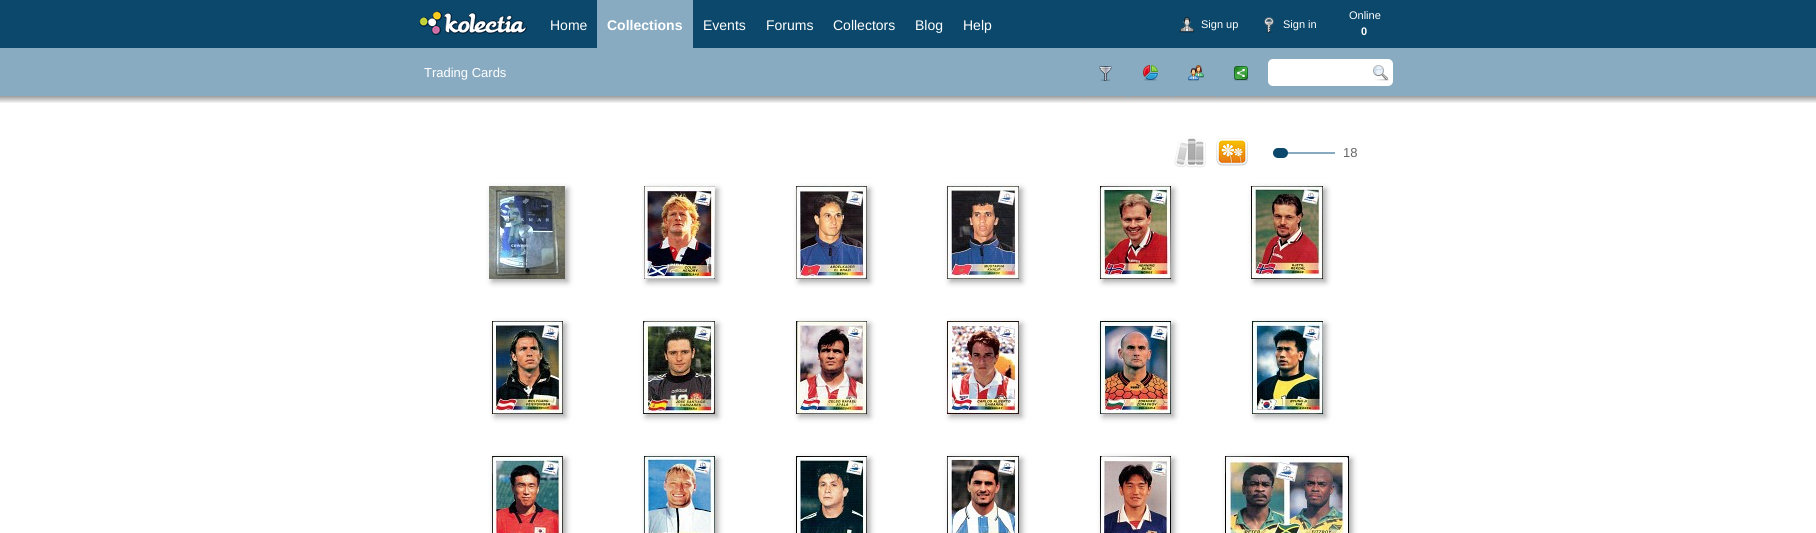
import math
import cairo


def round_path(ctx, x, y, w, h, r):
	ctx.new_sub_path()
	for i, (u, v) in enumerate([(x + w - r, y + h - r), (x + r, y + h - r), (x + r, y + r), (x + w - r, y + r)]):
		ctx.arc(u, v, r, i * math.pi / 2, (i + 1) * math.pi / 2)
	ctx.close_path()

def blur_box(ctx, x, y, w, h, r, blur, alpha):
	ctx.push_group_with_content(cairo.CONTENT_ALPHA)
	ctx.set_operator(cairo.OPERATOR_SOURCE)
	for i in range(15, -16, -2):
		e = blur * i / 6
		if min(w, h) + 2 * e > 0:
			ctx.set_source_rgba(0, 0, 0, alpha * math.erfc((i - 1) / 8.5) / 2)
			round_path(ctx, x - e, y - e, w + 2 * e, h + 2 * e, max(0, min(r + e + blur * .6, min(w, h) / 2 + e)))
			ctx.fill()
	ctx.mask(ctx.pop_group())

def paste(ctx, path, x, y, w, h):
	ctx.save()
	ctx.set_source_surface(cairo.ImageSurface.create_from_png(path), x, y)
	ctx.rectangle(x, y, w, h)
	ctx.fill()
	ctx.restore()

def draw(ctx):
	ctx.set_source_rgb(1, 1, 1)
	ctx.paint()
	ctx.set_source_rgb(0.043, 0.282, 0.42)
	ctx.rectangle(0, 0, 1816, 48)
	ctx.fill()
	paste(ctx, 'media/1.png', 419, 11, 108, 24)
	ctx.select_font_face('Liberation Sans')
	ctx.set_font_size(14)
	ctx.set_source_rgb(1, 1, 1)
	ctx.move_to(550, 30)
	ctx.show_text('Home')
	ctx.set_source_rgb(0.533, 0.671, 0.761)
	ctx.rectangle(597, 0, 96, 48)
	ctx.fill()
	ctx.select_font_face('Liberation Sans', cairo.FONT_SLANT_NORMAL, cairo.FONT_WEIGHT_BOLD)
	ctx.set_source_rgb(1, 1, 1)
	ctx.move_to(607, 30)
	ctx.show_text('Collections')
	ctx.select_font_face('Liberation Sans')
	for x, y, s in [
		(703, 30, 'Events'),
		(766, 30, 'Forums'),
		(833, 30, 'Collectors'),
		(915, 30, 'Blog'),
		(963, 30, 'Help'),
	]:
		ctx.move_to(x, y)
		ctx.show_text(s)
	paste(ctx, 'media/2.png', 1179, 17, 16, 16)
	ctx.set_font_size(11)
	ctx.move_to(1201, 28)
	ctx.show_text('Sign up')
	paste(ctx, 'media/3.png', 1264, 17, 10, 16)
	ctx.move_to(1283, 28)
	ctx.show_text('Sign in')
	ctx.move_to(1349, 19)
	ctx.show_text('Online')
	ctx.select_font_face('Liberation Sans', cairo.FONT_SLANT_NORMAL, cairo.FONT_WEIGHT_BOLD)
	ctx.move_to(1361, 35)
	ctx.show_text('0')
	ctx.set_source_rgb(0.533, 0.671, 0.761)
	ctx.rectangle(0, 48, 1816, 48)
	ctx.fill()
	ctx.select_font_face('Liberation Sans')
	ctx.set_font_size(13)
	ctx.set_source_rgb(1, 1, 1)
	ctx.move_to(424, 77)
	ctx.show_text('Trading Cards')
	paste(ctx, 'media/4.png', 1099, 66, 13, 15)
	paste(ctx, 'media/9.png', 0, 96, 1816, 7)
	ctx.set_source_rgb(0.533, 0.671, 0.761)
	ctx.rectangle(1083, 96, 1, 1)
	ctx.fill()
	paste(ctx, 'media/5.png', 1143, 65, 15, 16)
	ctx.rectangle(1127, 96, 2, 1)
	ctx.fill()
	paste(ctx, 'media/6.png', 1188, 65, 16, 16)
	ctx.rectangle(1172, 96, 2, 1)
	ctx.fill()
	paste(ctx, 'media/7.png', 1233, 66, 16, 15)
	ctx.rectangle(1262, 96, 1, 1)
	ctx.fill()
	ctx.rectangle(1217, 96, 2, 1)
	ctx.fill()
	ctx.set_source_rgb(1, 1, 1)
	round_path(ctx, 1268, 59, 125, 27, 5)
	ctx.fill()
	paste(ctx, 'media/8.png', 1373, 65, 16, 16)
	paste(ctx, 'media/10.png', 1174, 136, 32, 32)
	paste(ctx, 'media/11.png', 1216, 138, 32, 28)
	ctx.set_source_rgb(0.533, 0.671, 0.761)
	ctx.rectangle(1273, 152, 62, 2)
	ctx.fill()
	ctx.set_source_rgb(0.043, 0.282, 0.42)
	round_path(ctx, 1273, 148, 15, 10, 5)
	ctx.fill()
	ctx.set_source_rgb(0.4, 0.4, 0.4)
	ctx.move_to(1343, 157)
	ctx.show_text('18')
	ctx.set_source_rgb(0.667, 0.667, 0.667)
	blur_box(ctx, 492, 189, 76, 93, 0, 3, 1)
	paste(ctx, 'media/12.png', 489, 186, 76, 93)
	blur_box(ctx, 647, 189, 71, 93, 0, 3, 1)
	paste(ctx, 'media/13.png', 644, 186, 71, 93)
	blur_box(ctx, 799, 189, 71, 93, 0, 3, 1)
	paste(ctx, 'media/14.png', 796, 186, 71, 93)
	blur_box(ctx, 950, 189, 72, 93, 0, 3, 1)
	paste(ctx, 'media/15.png', 947, 186, 72, 93)
	blur_box(ctx, 1103, 189, 71, 93, 0, 3, 1)
	paste(ctx, 'media/16.png', 1100, 186, 71, 93)
	blur_box(ctx, 1254, 189, 72, 93, 0, 3, 1)
	paste(ctx, 'media/17.png', 1251, 186, 72, 93)
	blur_box(ctx, 495, 324, 71, 93, 0, 3, 1)
	paste(ctx, 'media/18.png', 492, 321, 71, 93)
	blur_box(ctx, 646, 324, 72, 93, 0, 3, 1)
	paste(ctx, 'media/19.png', 643, 321, 72, 93)
	blur_box(ctx, 799, 324, 71, 93, 0, 3, 1)
	paste(ctx, 'media/20.png', 796, 321, 71, 93)
	blur_box(ctx, 950, 324, 72, 93, 0, 3, 1)
	paste(ctx, 'media/21.png', 947, 321, 72, 93)
	blur_box(ctx, 1103, 324, 71, 93, 0, 3, 1)
	paste(ctx, 'media/22.png', 1100, 321, 71, 93)
	blur_box(ctx, 1255, 324, 71, 93, 0, 3, 1)
	paste(ctx, 'media/23.png', 1252, 321, 71, 93)
	blur_box(ctx, 495, 459, 71, 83, 0, 3, 1)
	paste(ctx, 'media/24.png', 492, 456, 71, 77)
	blur_box(ctx, 647, 459, 71, 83, 0, 3, 1)
	paste(ctx, 'media/25.png', 644, 456, 71, 77)
	blur_box(ctx, 799, 459, 71, 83, 0, 3, 1)
	paste(ctx, 'media/26.png', 796, 456, 71, 77)
	blur_box(ctx, 950, 459, 72, 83, 0, 3, 1)
	paste(ctx, 'media/27.png', 947, 456, 72, 77)
	blur_box(ctx, 1103, 459, 71, 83, 0, 3, 1)
	paste(ctx, 'media/28.png', 1100, 456, 71, 77)
	blur_box(ctx, 1228, 459, 124, 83, 0, 3, 1)
	paste(ctx, 'media/29.png', 1225, 456, 124, 77)


surface = cairo.ImageSurface(cairo.FORMAT_RGB24, 1816, 533)
ctx = cairo.Context(surface)
options = cairo.FontOptions()
options.set_hint_metrics(cairo.HINT_METRICS_OFF)
options.set_hint_style(cairo.HINT_STYLE_NONE)
ctx.set_font_options(options)
ctx.set_miter_limit(4)
draw(ctx)
surface.write_to_png('image.png')
